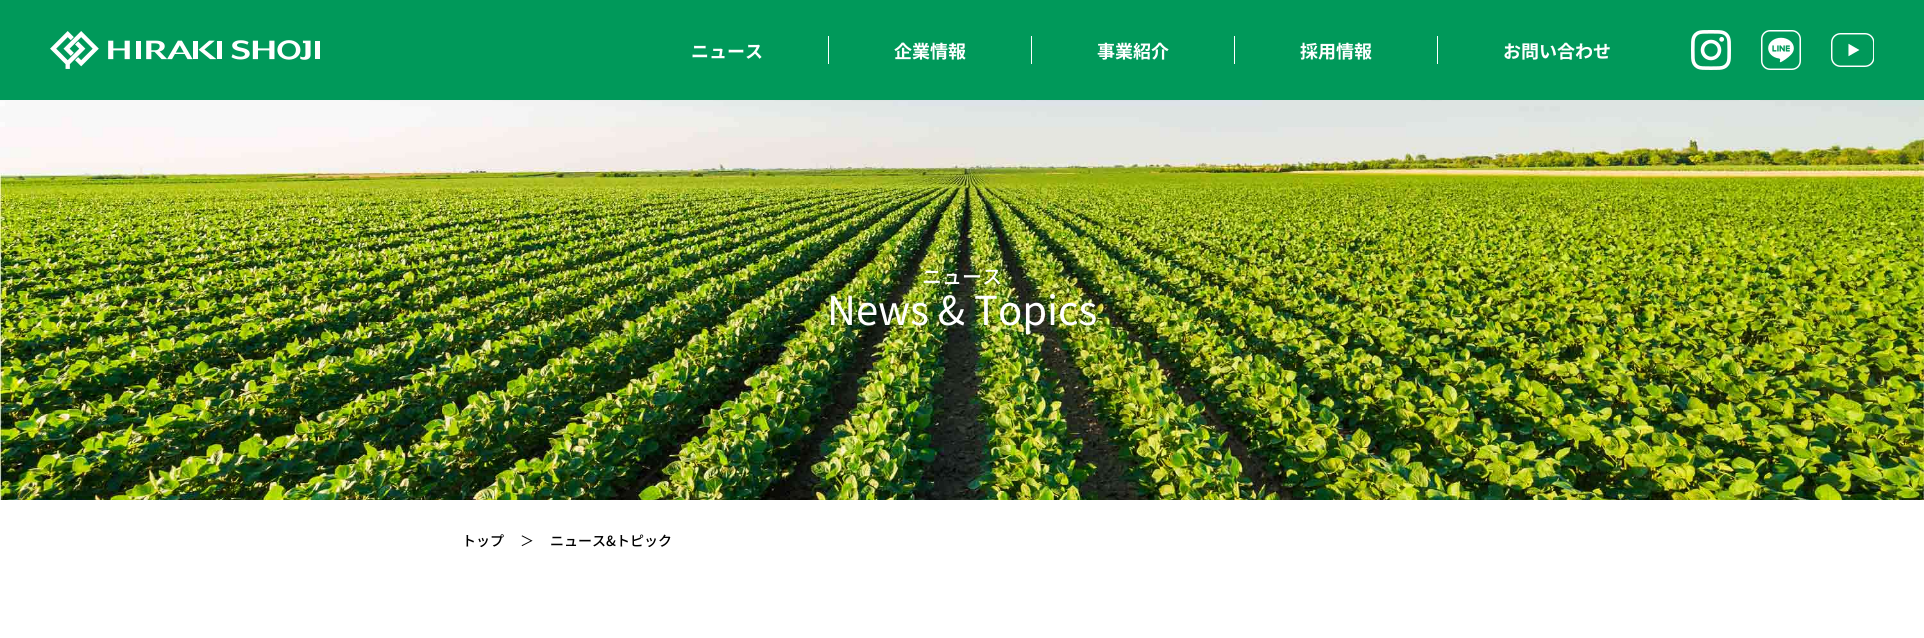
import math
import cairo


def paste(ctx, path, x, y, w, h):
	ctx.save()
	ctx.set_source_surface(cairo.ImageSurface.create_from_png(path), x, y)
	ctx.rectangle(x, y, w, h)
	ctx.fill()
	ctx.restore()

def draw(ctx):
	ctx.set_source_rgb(1, 1, 1)
	ctx.paint()
	ctx.set_source_rgb(0, 0.6, 0.353)
	ctx.rectangle(0, 0, 1924, 100)
	ctx.fill()
	paste(ctx, 'media/1.png', 50, 31, 270, 38)
	ctx.set_source_rgb(1, 1, 1)
	ctx.rectangle(828, 36, 1, 28)
	ctx.fill()
	ctx.select_font_face('Noto Sans JP', cairo.FONT_SLANT_NORMAL, cairo.FONT_WEIGHT_BOLD)
	ctx.set_font_size(18)
	ctx.move_to(691, 58)
	ctx.show_text('ニュース')
	ctx.rectangle(1031, 36, 1, 28)
	ctx.fill()
	ctx.move_to(894, 58)
	ctx.show_text('企業情報')
	ctx.rectangle(1234, 36, 1, 28)
	ctx.fill()
	ctx.move_to(1097, 58)
	ctx.show_text('事業紹介')
	ctx.rectangle(1437, 36, 1, 28)
	ctx.fill()
	ctx.move_to(1300, 58)
	ctx.show_text('採用情報')
	ctx.move_to(1503, 58)
	ctx.show_text('お問い合わせ')
	paste(ctx, 'media/2.png', 1691, 30, 40, 40)
	paste(ctx, 'media/3.png', 1761, 30, 40, 40)
	paste(ctx, 'media/4.png', 1831, 33, 43, 34)
	paste(ctx, 'media/5.png', 0, 100, 1924, 400)
	ctx.select_font_face('Noto Sans JP Medium')
	ctx.set_font_size(20)
	ctx.move_to(922, 284)
	ctx.show_text('ニュース')
	ctx.select_font_face('Noto Sans JP')
	ctx.set_font_size(40)
	ctx.move_to(827, 325)
	ctx.show_text('News & Topics')
	ctx.select_font_face('Noto Sans JP Medium')
	ctx.set_font_size(14)
	ctx.set_source_rgb(0, 0, 0)
	ctx.move_to(462, 546)
	ctx.show_text('トップ')
	ctx.select_font_face('Noto Sans JP')
	ctx.move_to(520, 546)
	ctx.show_text('＞')
	ctx.select_font_face('Noto Sans JP Medium')
	ctx.move_to(550, 546)
	ctx.show_text('ニュース&トピック')


surface = cairo.ImageSurface(cairo.FORMAT_RGB24, 1924, 638)
ctx = cairo.Context(surface)
options = cairo.FontOptions()
options.set_hint_metrics(cairo.HINT_METRICS_OFF)
options.set_hint_style(cairo.HINT_STYLE_NONE)
ctx.set_font_options(options)
ctx.set_miter_limit(4)
draw(ctx)
surface.write_to_png('image.png')
